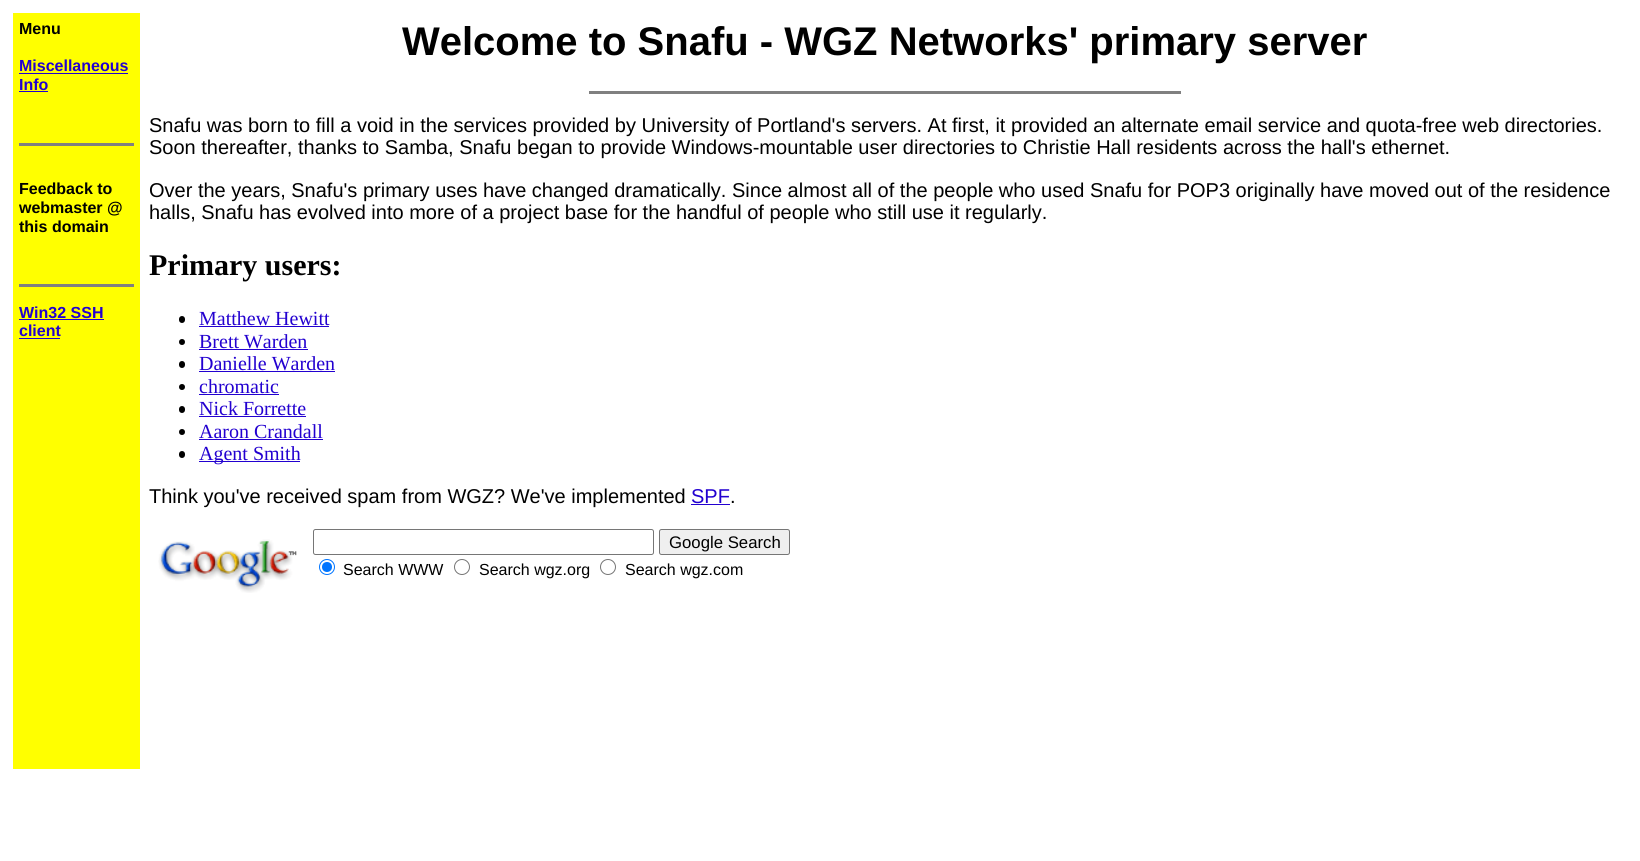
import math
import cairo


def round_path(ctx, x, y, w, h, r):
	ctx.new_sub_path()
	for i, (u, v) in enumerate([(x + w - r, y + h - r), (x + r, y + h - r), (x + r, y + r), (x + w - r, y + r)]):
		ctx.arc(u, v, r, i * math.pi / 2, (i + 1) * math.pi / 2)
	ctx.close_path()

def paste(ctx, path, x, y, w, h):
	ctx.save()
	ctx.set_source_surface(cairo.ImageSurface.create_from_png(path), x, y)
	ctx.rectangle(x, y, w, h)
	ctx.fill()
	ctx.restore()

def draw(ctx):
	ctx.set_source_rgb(1, 1, 1)
	ctx.paint()
	ctx.set_source_rgb(1, 1, 0)
	ctx.rectangle(13, 13, 127, 756)
	ctx.fill()
	ctx.select_font_face('Liberation Sans', cairo.FONT_SLANT_NORMAL, cairo.FONT_WEIGHT_BOLD)
	ctx.set_font_size(16)
	ctx.set_source_rgb(0, 0, 0)
	ctx.move_to(19, 34)
	ctx.show_text('Menu')
	ctx.set_source_rgb(0.133, 0, 0.816)
	ctx.move_to(19, 71)
	ctx.show_text('Miscellaneous')
	ctx.rectangle(19, 73, 109, 1)
	ctx.fill()
	ctx.move_to(19, 90)
	ctx.show_text('Info')
	ctx.rectangle(19, 91, 29, 1)
	ctx.fill()
	ctx.set_source_rgb(0.502, 0.502, 0.502)
	ctx.rectangle(19, 143, 115, 3)
	ctx.fill()
	ctx.set_source_rgb(0, 0, 0)
	for x, y, s in [
		(19, 194, 'Feedback to'),
		(19, 213, 'webmaster @'),
		(19, 232, 'this domain'),
	]:
		ctx.move_to(x, y)
		ctx.show_text(s)
	ctx.set_source_rgb(0.502, 0.502, 0.502)
	ctx.rectangle(19, 284, 115, 3)
	ctx.fill()
	ctx.set_source_rgb(0.133, 0, 0.816)
	ctx.move_to(19, 318)
	ctx.show_text('Win32 SSH')
	ctx.rectangle(19, 319, 85, 1)
	ctx.fill()
	ctx.move_to(19, 336)
	ctx.show_text('client')
	ctx.rectangle(19, 338, 41, 1)
	ctx.fill()
	ctx.set_font_size(40)
	ctx.set_source_rgb(0, 0, 0)
	ctx.move_to(402, 55)
	ctx.show_text('Welcome to Snafu - WGZ Networks\' primary server')
	ctx.set_source_rgb(0.502, 0.502, 0.502)
	ctx.rectangle(589, 91, 592, 3)
	ctx.fill()
	ctx.select_font_face('Liberation Sans')
	ctx.set_font_size(20)
	ctx.set_source_rgb(0, 0, 0)
	for x, y, s in [
		(149, 132, 'Snafu was born to fill a void in the services provided by University of Portland\'s servers. At first, it provided an alternate email service and quota-free web directories.'),
		(149, 154, 'Soon thereafter, thanks to Samba, Snafu began to provide Windows-mountable user directories to Christie Hall residents across the hall\'s ethernet.'),
		(149, 197, 'Over the years, Snafu\'s primary uses have changed dramatically. Since almost all of the people who used Snafu for POP3 originally have moved out of the residence'),
		(149, 219, 'halls, Snafu has evolved into more of a project base for the handful of people who still use it regularly.'),
	]:
		ctx.move_to(x, y)
		ctx.show_text(s)
	ctx.select_font_face('Liberation Serif', cairo.FONT_SLANT_NORMAL, cairo.FONT_WEIGHT_BOLD)
	ctx.set_font_size(30)
	ctx.move_to(149, 275)
	ctx.show_text('Primary users:')
	round_path(ctx, 179, 316, 6, 7, 3)
	ctx.fill()
	ctx.select_font_face('Liberation Serif')
	ctx.set_font_size(20)
	ctx.set_source_rgb(0.133, 0, 0.816)
	ctx.move_to(199, 325)
	ctx.show_text('Matthew Hewitt')
	ctx.rectangle(199, 326, 130, 1)
	ctx.fill()
	ctx.set_source_rgb(0, 0, 0)
	ctx.arc(182, 342, 3, 0, 2 * math.pi)
	ctx.fill()
	ctx.set_source_rgb(0.133, 0, 0.816)
	ctx.move_to(199, 348)
	ctx.show_text('Brett Warden')
	ctx.rectangle(199, 349, 109, 1)
	ctx.fill()
	ctx.set_source_rgb(0, 0, 0)
	round_path(ctx, 179, 361, 6, 7, 3)
	ctx.fill()
	ctx.set_source_rgb(0.133, 0, 0.816)
	ctx.move_to(199, 370)
	ctx.show_text('Danielle Warden')
	ctx.rectangle(199, 371, 136, 1)
	ctx.fill()
	ctx.set_source_rgb(0, 0, 0)
	ctx.arc(182, 387, 3, 0, 2 * math.pi)
	ctx.fill()
	ctx.set_source_rgb(0.133, 0, 0.816)
	ctx.move_to(199, 393)
	ctx.show_text('chromatic')
	ctx.rectangle(199, 394, 80, 1)
	ctx.fill()
	ctx.set_source_rgb(0, 0, 0)
	round_path(ctx, 179, 406, 6, 7, 3)
	ctx.fill()
	ctx.set_source_rgb(0.133, 0, 0.816)
	ctx.move_to(199, 415)
	ctx.show_text('Nick Forrette')
	ctx.rectangle(199, 416, 107, 1)
	ctx.fill()
	ctx.set_source_rgb(0, 0, 0)
	ctx.arc(182, 432, 3, 0, 2 * math.pi)
	ctx.fill()
	ctx.set_source_rgb(0.133, 0, 0.816)
	ctx.move_to(199, 438)
	ctx.show_text('Aaron Crandall')
	ctx.rectangle(199, 439, 124, 1)
	ctx.fill()
	ctx.set_source_rgb(0, 0, 0)
	round_path(ctx, 179, 451, 6, 7, 3)
	ctx.fill()
	ctx.set_source_rgb(0.133, 0, 0.816)
	ctx.rectangle(199, 461, 101, 1)
	ctx.fill()
	ctx.move_to(199, 460)
	ctx.show_text('Agent Smith')
	ctx.select_font_face('Liberation Sans')
	ctx.set_source_rgb(0, 0, 0)
	ctx.move_to(149, 503)
	ctx.show_text('Think you\'ve received spam from WGZ? We\'ve implemented')
	ctx.set_source_rgb(0.133, 0, 0.816)
	ctx.move_to(691, 503)
	ctx.show_text('SPF')
	ctx.rectangle(691, 504, 39, 1)
	ctx.fill()
	ctx.set_source_rgb(0, 0, 0)
	ctx.move_to(730, 503)
	ctx.show_text('.')
	paste(ctx, 'media/1.png', 158, 539, 139, 54)
	round_path(ctx, 313.5, 529.5, 340, 25, 2)
	ctx.set_source_rgb(0.463, 0.463, 0.463)
	ctx.set_line_width(1)
	ctx.stroke()
	ctx.set_source_rgb(0.937, 0.937, 0.937)
	round_path(ctx, 659.5, 529.5, 130, 25, 2)
	ctx.fill_preserve()
	ctx.set_source_rgb(0.463, 0.463, 0.463)
	ctx.stroke()
	ctx.set_font_size(16.75)
	ctx.set_source_rgb(0, 0, 0)
	ctx.move_to(669, 548)
	ctx.show_text('Google Search')
	ctx.new_path()
	ctx.arc(327, 567, 7.5, 0, 2 * math.pi)
	ctx.set_source_rgb(0, 0.459, 1)
	ctx.stroke()
	ctx.arc(327, 567, 5, 0, 2 * math.pi)
	ctx.fill()
	ctx.set_font_size(16)
	ctx.set_source_rgb(0, 0, 0)
	ctx.move_to(343, 575)
	ctx.show_text('Search WWW')
	ctx.new_path()
	ctx.arc(462, 567, 7.5, 0, 2 * math.pi)
	ctx.set_source_rgb(0.463, 0.463, 0.463)
	ctx.stroke()
	ctx.set_source_rgb(0, 0, 0)
	ctx.move_to(479, 575)
	ctx.show_text('Search wgz.org')
	ctx.new_path()
	ctx.arc(608, 567, 7.5, 0, 2 * math.pi)
	ctx.set_source_rgb(0.463, 0.463, 0.463)
	ctx.stroke()
	ctx.set_source_rgb(0, 0, 0)
	ctx.move_to(625, 575)
	ctx.show_text('Search wgz.com')


surface = cairo.ImageSurface(cairo.FORMAT_RGB24, 1640, 861)
ctx = cairo.Context(surface)
options = cairo.FontOptions()
options.set_hint_metrics(cairo.HINT_METRICS_OFF)
options.set_hint_style(cairo.HINT_STYLE_NONE)
ctx.set_font_options(options)
ctx.set_miter_limit(4)
draw(ctx)
surface.write_to_png('image.png')
